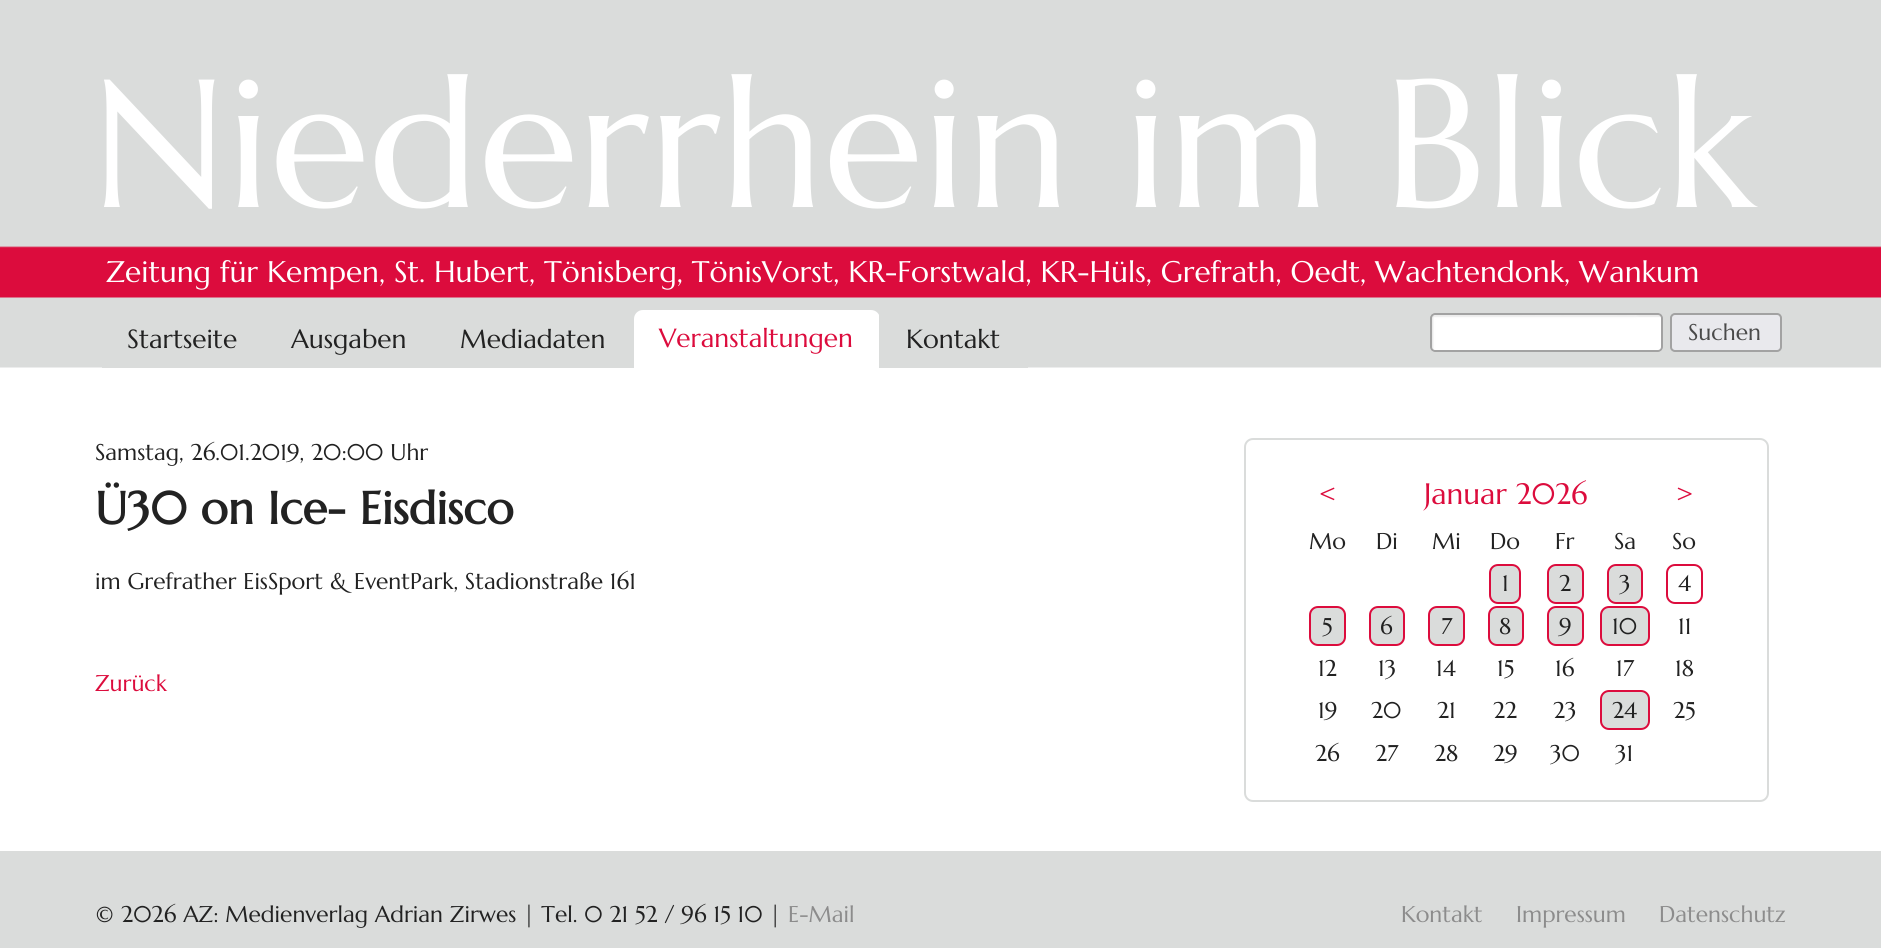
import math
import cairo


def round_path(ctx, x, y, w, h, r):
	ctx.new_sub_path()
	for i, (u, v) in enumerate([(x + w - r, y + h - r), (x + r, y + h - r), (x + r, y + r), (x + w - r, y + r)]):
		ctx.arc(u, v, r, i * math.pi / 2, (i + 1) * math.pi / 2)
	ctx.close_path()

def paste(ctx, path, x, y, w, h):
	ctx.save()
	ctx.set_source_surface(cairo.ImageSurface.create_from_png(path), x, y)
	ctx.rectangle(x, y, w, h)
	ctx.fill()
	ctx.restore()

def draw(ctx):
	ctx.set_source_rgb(1, 1, 1)
	ctx.paint()
	paste(ctx, 'media/1.png', 0, 0, 1881, 368)
	ctx.select_font_face('Marcellus')
	ctx.set_font_size(182)
	ctx.set_source_rgb(1, 1, 1)
	ctx.move_to(92, 207)
	ctx.show_text('Niederrhein im Blick')
	ctx.set_font_size(29.75)
	ctx.move_to(106, 282)
	ctx.show_text('Zeitung für Kempen, St. Hubert, Tönisberg, TönisVorst, KR-Forstwald, KR-Hüls, Grefrath, Oedt, Wachtendonk, Wankum')
	ctx.set_source_rgb(0.855, 0.863, 0.859)
	ctx.new_path()
	ctx.move_to(111, 310)
	ctx.line_to(255, 310)
	ctx.curve_to(260, 310, 264, 314, 264, 319)
	ctx.line_to(264, 368)
	ctx.line_to(102, 368)
	ctx.line_to(102, 319)
	ctx.curve_to(102, 314, 106, 310, 111, 310)
	ctx.close_path()
	ctx.fill()
	ctx.rectangle(264, 367, 1, 1)
	ctx.fill()
	ctx.set_font_size(26.25)
	ctx.set_source_rgb(0.133, 0.133, 0.133)
	ctx.move_to(127, 348)
	ctx.show_text('Startseite')
	ctx.set_source_rgb(0.855, 0.863, 0.859)
	ctx.new_path()
	ctx.move_to(273, 310)
	ctx.line_to(425, 310)
	ctx.curve_to(430, 310, 434, 314, 434, 319)
	ctx.line_to(434, 368)
	ctx.line_to(264, 368)
	ctx.line_to(264, 319)
	ctx.curve_to(264, 314, 268, 310, 273, 310)
	ctx.close_path()
	ctx.fill()
	ctx.set_source_rgb(0.133, 0.133, 0.133)
	ctx.move_to(291, 348)
	ctx.show_text('Ausgaben')
	ctx.set_source_rgb(0.855, 0.863, 0.859)
	ctx.new_path()
	ctx.move_to(443, 310)
	ctx.line_to(625, 310)
	ctx.curve_to(630, 310, 634, 314, 634, 319)
	ctx.line_to(634, 368)
	ctx.line_to(434, 368)
	ctx.line_to(434, 319)
	ctx.curve_to(434, 314, 438, 310, 443, 310)
	ctx.close_path()
	ctx.fill()
	ctx.set_source_rgb(0.133, 0.133, 0.133)
	ctx.move_to(460, 348)
	ctx.show_text('Mediadaten')
	ctx.set_source_rgb(1, 1, 1)
	ctx.new_path()
	ctx.move_to(643, 310)
	ctx.line_to(871, 310)
	ctx.curve_to(876, 310, 880, 314, 880, 319)
	ctx.line_to(880, 368)
	ctx.line_to(634, 368)
	ctx.line_to(634, 319)
	ctx.curve_to(634, 314, 638, 310, 643, 310)
	ctx.close_path()
	ctx.fill()
	ctx.set_source_rgb(0.855, 0.863, 0.859)
	ctx.rectangle(879, 315, 2, 53)
	ctx.fill()
	ctx.set_source_rgb(0.863, 0.047, 0.239)
	ctx.move_to(659, 347)
	ctx.show_text('Veranstaltungen')
	ctx.set_source_rgb(0.855, 0.863, 0.859)
	ctx.new_path()
	ctx.move_to(889, 310)
	ctx.line_to(1018, 310)
	ctx.curve_to(1023, 310, 1027, 314, 1027, 319)
	ctx.line_to(1027, 368)
	ctx.line_to(880, 368)
	ctx.line_to(880, 319)
	ctx.curve_to(880, 314, 884, 310, 889, 310)
	ctx.close_path()
	ctx.fill()
	ctx.rectangle(1027, 367, 1, 1)
	ctx.fill()
	ctx.set_source_rgb(0.133, 0.133, 0.133)
	ctx.move_to(906, 348)
	ctx.show_text('Kontakt')
	ctx.set_source_rgb(1, 1, 1)
	round_path(ctx, 1430, 313, 233, 39, 5)
	ctx.fill()
	paste(ctx, 'media/2.png', 1430, 314, 231, 37)
	round_path(ctx, 1431, 314, 231, 37, 4)
	ctx.set_source_rgb(0.635, 0.635, 0.635)
	ctx.stroke()
	ctx.set_source_rgb(0.914, 0.914, 0.929)
	round_path(ctx, 1671, 314, 110, 37, 4)
	ctx.fill_preserve()
	ctx.set_source_rgb(0.635, 0.635, 0.635)
	ctx.stroke()
	ctx.set_font_size(22.75)
	ctx.set_source_rgb(0.29, 0.29, 0.29)
	ctx.move_to(1688, 340)
	ctx.show_text('Suchen')
	ctx.set_source_rgb(0.133, 0.133, 0.133)
	ctx.move_to(95, 460)
	ctx.show_text('Samstag, 26.01.2019, 20:00 Uhr')
	ctx.select_font_face('Marcellus', cairo.FONT_SLANT_NORMAL, cairo.FONT_WEIGHT_BOLD)
	ctx.set_font_size(45.5)
	ctx.move_to(95, 524)
	ctx.show_text('Ü30 on Ice- Eisdisco')
	ctx.select_font_face('Marcellus')
	ctx.set_font_size(22.75)
	ctx.move_to(95, 589)
	ctx.show_text('im Grefrather EisSport & EventPark, Stadionstraße 161')
	ctx.set_source_rgb(0.863, 0.047, 0.239)
	ctx.move_to(95, 691)
	ctx.show_text('Zurück')
	round_path(ctx, 1245, 439, 523, 362, 8)
	ctx.set_source_rgb(0.855, 0.863, 0.859)
	ctx.stroke()
	ctx.set_font_size(29.5)
	ctx.set_source_rgb(0.863, 0.047, 0.239)
	for x, y, s in [
		(1318, 504, '<'),
		(1424, 504, 'Januar 2026'),
		(1675, 504, '>'),
	]:
		ctx.move_to(x, y)
		ctx.show_text(s)
	ctx.set_font_size(22.75)
	ctx.set_source_rgb(0.133, 0.133, 0.133)
	for x, y, s in [
		(1309, 549, 'Mo'),
		(1376, 549, 'Di'),
		(1432, 549, 'Mi'),
		(1490, 549, 'Do'),
		(1555, 549, 'Fr'),
		(1614, 549, 'Sa'),
		(1672, 549, 'So'),
	]:
		ctx.move_to(x, y)
		ctx.show_text(s)
	ctx.set_source_rgb(0.855, 0.863, 0.859)
	round_path(ctx, 1490, 565, 30, 38, 8)
	ctx.fill_preserve()
	ctx.set_source_rgb(0.863, 0.047, 0.239)
	ctx.stroke()
	ctx.set_source_rgb(0.133, 0.133, 0.133)
	ctx.move_to(1502, 591)
	ctx.show_text('1')
	ctx.set_source_rgb(0.855, 0.863, 0.859)
	round_path(ctx, 1548, 565, 35, 38, 8)
	ctx.fill_preserve()
	ctx.set_source_rgb(0.863, 0.047, 0.239)
	ctx.stroke()
	ctx.set_source_rgb(0.133, 0.133, 0.133)
	ctx.move_to(1559, 591)
	ctx.show_text('2')
	ctx.set_source_rgb(0.855, 0.863, 0.859)
	round_path(ctx, 1608, 565, 34, 38, 8)
	ctx.fill_preserve()
	ctx.set_source_rgb(0.863, 0.047, 0.239)
	ctx.stroke()
	ctx.set_source_rgb(0.133, 0.133, 0.133)
	ctx.move_to(1619, 591)
	ctx.show_text('3')
	round_path(ctx, 1667, 565, 35, 38, 8)
	ctx.set_source_rgb(0.863, 0.047, 0.239)
	ctx.stroke()
	ctx.set_source_rgb(0.133, 0.133, 0.133)
	ctx.move_to(1678, 591)
	ctx.show_text('4')
	ctx.set_source_rgb(0.855, 0.863, 0.859)
	round_path(ctx, 1310, 607, 35, 38, 8)
	ctx.fill_preserve()
	ctx.set_source_rgb(0.863, 0.047, 0.239)
	ctx.stroke()
	ctx.set_source_rgb(0.133, 0.133, 0.133)
	ctx.move_to(1322, 634)
	ctx.show_text('5')
	ctx.set_source_rgb(0.855, 0.863, 0.859)
	round_path(ctx, 1370, 607, 34, 38, 8)
	ctx.fill_preserve()
	ctx.set_source_rgb(0.863, 0.047, 0.239)
	ctx.stroke()
	ctx.set_source_rgb(0.133, 0.133, 0.133)
	ctx.move_to(1380, 634)
	ctx.show_text('6')
	ctx.set_source_rgb(0.855, 0.863, 0.859)
	round_path(ctx, 1429, 607, 35, 38, 8)
	ctx.fill_preserve()
	ctx.set_source_rgb(0.863, 0.047, 0.239)
	ctx.stroke()
	ctx.set_source_rgb(0.133, 0.133, 0.133)
	ctx.move_to(1441, 634)
	ctx.show_text('7')
	ctx.set_source_rgb(0.855, 0.863, 0.859)
	round_path(ctx, 1489, 607, 34, 38, 8)
	ctx.fill_preserve()
	ctx.set_source_rgb(0.863, 0.047, 0.239)
	ctx.stroke()
	ctx.set_source_rgb(0.133, 0.133, 0.133)
	ctx.move_to(1499, 634)
	ctx.show_text('8')
	ctx.set_source_rgb(0.855, 0.863, 0.859)
	round_path(ctx, 1548, 607, 35, 38, 8)
	ctx.fill_preserve()
	ctx.set_source_rgb(0.863, 0.047, 0.239)
	ctx.stroke()
	ctx.set_source_rgb(0.133, 0.133, 0.133)
	ctx.move_to(1559, 634)
	ctx.show_text('9')
	ctx.set_source_rgb(0.855, 0.863, 0.859)
	round_path(ctx, 1601, 607, 48, 38, 8)
	ctx.fill_preserve()
	ctx.set_source_rgb(0.863, 0.047, 0.239)
	ctx.stroke()
	ctx.set_source_rgb(0.133, 0.133, 0.133)
	for x, y, s in [
		(1612, 634, '10'),
		(1678, 634, '11'),
		(1318, 676, '12'),
		(1378, 676, '13'),
		(1436, 676, '14'),
		(1497, 676, '15'),
		(1555, 676, '16'),
		(1616, 676, '17'),
		(1675, 676, '18'),
		(1318, 718, '19'),
		(1371, 718, '20'),
		(1437, 718, '21'),
		(1493, 718, '22'),
		(1553, 718, '23'),
	]:
		ctx.move_to(x, y)
		ctx.show_text(s)
	ctx.set_source_rgb(0.855, 0.863, 0.859)
	round_path(ctx, 1601, 691, 48, 38, 8)
	ctx.fill_preserve()
	ctx.set_source_rgb(0.863, 0.047, 0.239)
	ctx.stroke()
	ctx.set_source_rgb(0.133, 0.133, 0.133)
	for x, y, s in [
		(1612, 718, '24'),
		(1673, 718, '25'),
		(1315, 761, '26'),
		(1375, 761, '27'),
		(1434, 761, '28'),
		(1493, 761, '29'),
		(1550, 761, '30'),
		(1615, 761, '31'),
	]:
		ctx.move_to(x, y)
		ctx.show_text(s)
	ctx.set_source_rgb(0.855, 0.863, 0.859)
	ctx.rectangle(0, 851, 1881, 97)
	ctx.fill()
	ctx.set_source_rgb(0.133, 0.133, 0.133)
	ctx.move_to(95, 922)
	ctx.show_text('© 2026 AZ: Medienverlag Adrian Zirwes | Tel. 0 21 52 / 96 15 10 |')
	ctx.set_source_rgb(0.549, 0.549, 0.549)
	for x, y, s in [
		(788, 922, 'E-Mail'),
		(1401, 922, 'Kontakt'),
		(1516, 922, 'Impressum'),
		(1659, 922, 'Datenschutz'),
	]:
		ctx.move_to(x, y)
		ctx.show_text(s)


surface = cairo.ImageSurface(cairo.FORMAT_RGB24, 1881, 948)
ctx = cairo.Context(surface)
options = cairo.FontOptions()
options.set_hint_metrics(cairo.HINT_METRICS_OFF)
options.set_hint_style(cairo.HINT_STYLE_NONE)
ctx.set_font_options(options)
ctx.set_miter_limit(4)
draw(ctx)
surface.write_to_png('image.png')
